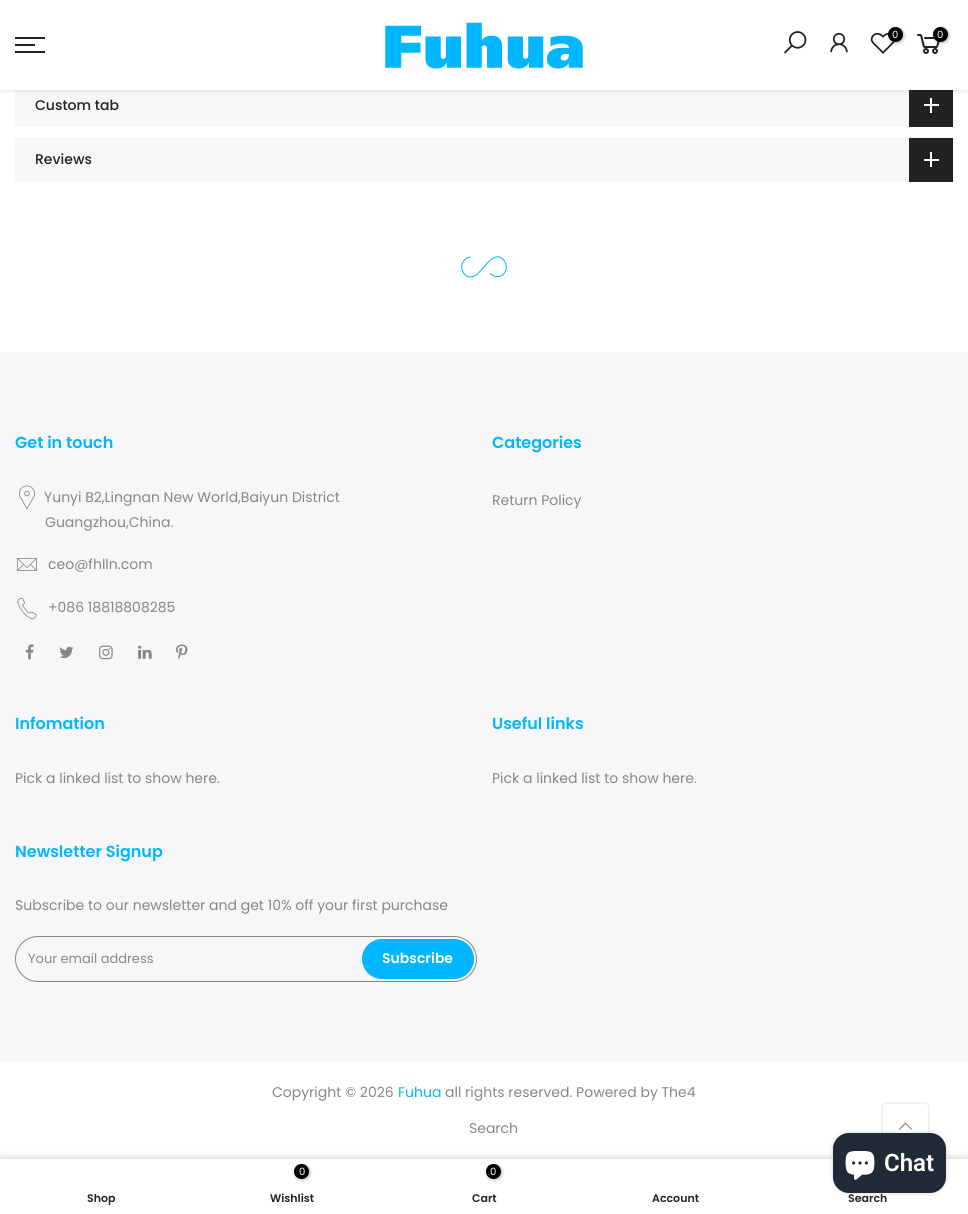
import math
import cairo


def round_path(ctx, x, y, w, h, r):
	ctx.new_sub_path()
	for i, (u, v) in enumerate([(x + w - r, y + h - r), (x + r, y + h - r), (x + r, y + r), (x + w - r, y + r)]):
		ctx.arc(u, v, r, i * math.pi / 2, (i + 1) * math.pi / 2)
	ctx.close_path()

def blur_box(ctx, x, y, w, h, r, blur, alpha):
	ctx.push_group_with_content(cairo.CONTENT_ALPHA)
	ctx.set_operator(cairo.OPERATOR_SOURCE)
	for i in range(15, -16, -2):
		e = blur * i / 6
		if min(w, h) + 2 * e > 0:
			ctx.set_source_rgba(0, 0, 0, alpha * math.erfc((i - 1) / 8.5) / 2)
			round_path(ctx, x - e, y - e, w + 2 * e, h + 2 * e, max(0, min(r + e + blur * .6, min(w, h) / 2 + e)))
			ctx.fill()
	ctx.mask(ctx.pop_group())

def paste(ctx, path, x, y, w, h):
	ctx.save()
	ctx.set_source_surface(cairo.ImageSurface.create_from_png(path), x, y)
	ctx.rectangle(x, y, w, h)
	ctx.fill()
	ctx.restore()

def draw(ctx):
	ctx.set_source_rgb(1, 1, 1)
	ctx.paint()
	ctx.set_source_rgb(0.965, 0.965, 0.973)
	ctx.rectangle(15, 90, 894, 37)
	ctx.fill()
	ctx.set_source_rgb(0.133, 0.133, 0.133)
	ctx.rectangle(909, 90, 44, 37)
	ctx.fill()
	ctx.set_source_rgb(0, 0, 0)
	blur_box(ctx, 0, 1, 968, 90, 0, 1.5, 0.1)
	ctx.set_source_rgb(1, 1, 1)
	ctx.rectangle(0, 0, 968, 90)
	ctx.fill()
	paste(ctx, 'media/1.png', 385, 22, 198, 47)
	paste(ctx, 'media/2.png', 784, 31, 23, 23)
	paste(ctx, 'media/3.png', 830, 32, 18, 21)
	paste(ctx, 'media/4.png', 870, 32, 25, 22)
	ctx.set_source_rgb(0, 0, 0)
	blur_box(ctx, 889, 28, 15, 15, 7.5, 1.5, 0.3)
	ctx.set_source_rgb(0, 0, 0)
	ctx.arc(895.5, 34.5, 7.5, 0, 2 * math.pi)
	ctx.fill()
	ctx.select_font_face('Poppins')
	ctx.set_font_size(10)
	ctx.set_source_rgb(1, 1, 1)
	ctx.move_to(892, 38)
	ctx.show_text('0')
	paste(ctx, 'media/5.png', 917, 34, 23, 20)
	ctx.set_source_rgb(0, 0, 0)
	blur_box(ctx, 934, 28, 15, 15, 7.5, 1.5, 0.3)
	ctx.set_source_rgb(0, 0, 0)
	ctx.arc(940.5, 34.5, 7.5, 0, 2 * math.pi)
	ctx.fill()
	ctx.set_source_rgb(1, 1, 1)
	ctx.move_to(937, 38)
	ctx.show_text('0')
	ctx.set_source_rgb(0.133, 0.133, 0.133)
	ctx.rectangle(15, 37, 30, 2)
	ctx.rectangle(15, 44, 20, 2)
	ctx.rectangle(15, 51, 30, 2)
	ctx.fill()
	ctx.select_font_face('Poppins Medium')
	ctx.set_font_size(14)
	ctx.move_to(35, 110)
	ctx.show_text('Custom tab')
	ctx.set_source_rgb(1, 1, 1)
	ctx.rectangle(930, 98, 2, 15)
	ctx.rectangle(924, 104, 15, 2)
	ctx.fill()
	ctx.set_source_rgb(0.965, 0.965, 0.973)
	ctx.rectangle(15, 137, 938, 45)
	ctx.fill()
	ctx.set_source_rgb(0.133, 0.133, 0.133)
	ctx.move_to(35, 164)
	ctx.show_text('Reviews')
	ctx.rectangle(909, 138, 44, 44)
	ctx.fill()
	ctx.set_source_rgb(1, 1, 1)
	ctx.rectangle(930, 152, 2, 15)
	ctx.rectangle(924, 159, 15, 2)
	ctx.fill()
	ctx.new_path()
	ctx.move_to(471, 257)
	ctx.curve_to(468, 257, 465.5, 258.5, 464, 260.5)
	ctx.curve_to(458, 268, 465, 280.5, 474.5, 276)
	ctx.curve_to(482.5, 272.5, 493.5, 247.5, 504, 260.5)
	ctx.curve_to(511.5, 270.5, 499.5, 282.5, 490, 273.5)
	ctx.set_source_rgb(0, 0.718, 1)
	ctx.set_line_width(1)
	ctx.stroke()
	ctx.set_source_rgb(0.965, 0.965, 0.98)
	ctx.rectangle(0, 352, 968, 710)
	ctx.fill()
	ctx.select_font_face('Poppins SemiBold')
	ctx.set_font_size(16)
	ctx.set_source_rgb(0, 0.718, 1)
	ctx.move_to(15, 448)
	ctx.show_text('Get in touch')
	paste(ctx, 'media/6.png', 19, 485, 16, 25)
	ctx.select_font_face('Poppins')
	ctx.set_font_size(14)
	ctx.set_source_rgb(0.529, 0.529, 0.529)
	ctx.move_to(44, 502)
	ctx.show_text('Yunyi B2,Lingnan New World,Baiyun District')
	ctx.move_to(45, 527)
	ctx.show_text('Guangzhou,China.')
	paste(ctx, 'media/7.png', 17, 558, 20, 13)
	ctx.move_to(48, 569)
	ctx.show_text('ceo@fhlln.com')
	paste(ctx, 'media/8.png', 17, 597, 20, 23)
	ctx.move_to(48, 612)
	ctx.show_text('+086 18818808285')
	paste(ctx, 'media/9.png', 25, 644, 9, 16)
	paste(ctx, 'media/10.png', 59, 646, 15, 13)
	paste(ctx, 'media/11.png', 99, 645, 14, 15)
	paste(ctx, 'media/12.png', 138, 645, 14, 14)
	paste(ctx, 'media/13.png', 176, 644, 12, 16)
	ctx.select_font_face('Poppins SemiBold')
	ctx.set_font_size(16)
	ctx.set_source_rgb(0, 0.718, 1)
	ctx.move_to(492, 448)
	ctx.show_text('Categories')
	ctx.select_font_face('Poppins')
	ctx.set_font_size(14)
	ctx.set_source_rgb(0.529, 0.529, 0.529)
	ctx.move_to(492, 505)
	ctx.show_text('Return Policy')
	ctx.select_font_face('Poppins SemiBold')
	ctx.set_font_size(16)
	ctx.set_source_rgb(0, 0.718, 1)
	ctx.move_to(15, 729)
	ctx.show_text('Infomation')
	ctx.select_font_face('Poppins')
	ctx.set_font_size(14)
	ctx.set_source_rgb(0.529, 0.529, 0.529)
	ctx.move_to(15, 783)
	ctx.show_text('Pick a linked list to show here.')
	ctx.select_font_face('Poppins SemiBold')
	ctx.set_font_size(16)
	ctx.set_source_rgb(0, 0.718, 1)
	ctx.move_to(492, 729)
	ctx.show_text('Useful links')
	ctx.select_font_face('Poppins')
	ctx.set_font_size(14)
	ctx.set_source_rgb(0.529, 0.529, 0.529)
	ctx.move_to(492, 783)
	ctx.show_text('Pick a linked list to show here.')
	ctx.select_font_face('Poppins SemiBold')
	ctx.set_font_size(16)
	ctx.set_source_rgb(0, 0.718, 1)
	ctx.move_to(15, 857)
	ctx.show_text('Newsletter Signup')
	ctx.select_font_face('Poppins')
	ctx.set_font_size(14)
	ctx.set_source_rgb(0.529, 0.529, 0.529)
	ctx.move_to(15, 910)
	ctx.show_text('Subscribe to our newsletter and get 10% off your first purchase')
	round_path(ctx, 15.5, 936.5, 461, 45, 22.5)
	ctx.stroke()
	ctx.set_font_size(13)
	ctx.move_to(28, 963)
	ctx.show_text('Your email address')
	ctx.set_source_rgb(0, 0.718, 1)
	round_path(ctx, 362, 939, 112, 40, 20)
	ctx.fill()
	ctx.select_font_face('Poppins SemiBold')
	ctx.set_font_size(14)
	ctx.set_source_rgb(1, 1, 1)
	ctx.move_to(382, 963)
	ctx.show_text('Subscribe')
	ctx.select_font_face('Poppins')
	ctx.set_source_rgb(0.529, 0.529, 0.529)
	ctx.move_to(272, 1097)
	ctx.show_text('Copyright © 2026')
	ctx.set_source_rgb(0, 0.718, 1)
	ctx.move_to(398, 1097)
	ctx.show_text('Fuhua')
	ctx.set_source_rgb(0.529, 0.529, 0.529)
	ctx.move_to(445, 1097)
	ctx.show_text('all rights reserved. Powered by The4')
	ctx.move_to(469, 1133)
	ctx.show_text('Search')
	ctx.set_source_rgb(0, 0, 0)
	blur_box(ctx, 883, 1104, 45, 45, 3, 1.5, 0.2)
	ctx.set_source_rgb(1, 1, 1)
	round_path(ctx, 883, 1104, 45, 45, 3)
	ctx.fill()
	paste(ctx, 'media/14.png', 899, 1122, 13, 8)
	ctx.set_source_rgb(0, 0, 0)
	blur_box(ctx, 0, 1159, 968, 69, 0, 4.5, 0.12)
	blur_box(ctx, 0, 1159, 968, 55, 0, 4.5, 0.12)
	ctx.set_source_rgb(1, 1, 1)
	ctx.rectangle(0, 1159, 968, 55)
	ctx.fill()
	ctx.set_source_rgb(0, 0, 0)
	blur_box(ctx, 833, 1133, 113, 60, 16, 2.5, 0.15)
	ctx.set_source_rgb(0.125, 0.165, 0.212)
	round_path(ctx, 833, 1133, 113, 60, 16)
	ctx.fill()
	paste(ctx, 'media/15.png', 845, 1151, 30, 29)
	ctx.select_font_face('Roboto SemiBold')
	ctx.set_font_size(24)
	ctx.set_source_rgb(1, 1, 1)
	ctx.move_to(884, 1171)
	ctx.show_text('Chat')
	ctx.select_font_face('Poppins SemiBold')
	ctx.set_font_size(11)
	ctx.set_source_rgb(0.133, 0.133, 0.133)
	ctx.move_to(87, 1202)
	ctx.show_text('Shop')
	ctx.set_source_rgb(0, 0, 0)
	blur_box(ctx, 295, 1165, 15, 15, 7.5, 1.5, 0.3)
	ctx.set_source_rgb(0, 0, 0)
	ctx.arc(301.5, 1171.5, 7.5, 0, 2 * math.pi)
	ctx.fill()
	ctx.select_font_face('Poppins')
	ctx.set_font_size(10)
	ctx.set_source_rgb(1, 1, 1)
	ctx.move_to(299, 1175)
	ctx.show_text('0')
	ctx.select_font_face('Poppins SemiBold')
	ctx.set_font_size(11)
	ctx.set_source_rgb(0.133, 0.133, 0.133)
	ctx.move_to(270, 1202)
	ctx.show_text('Wishlist')
	ctx.set_source_rgb(0, 0, 0)
	blur_box(ctx, 487, 1165, 15, 15, 7.5, 1.5, 0.3)
	ctx.set_source_rgb(0, 0, 0)
	ctx.arc(493.5, 1171.5, 7.5, 0, 2 * math.pi)
	ctx.fill()
	ctx.select_font_face('Poppins')
	ctx.set_font_size(10)
	ctx.set_source_rgb(1, 1, 1)
	ctx.move_to(490, 1175)
	ctx.show_text('0')
	ctx.select_font_face('Poppins SemiBold')
	ctx.set_font_size(11)
	ctx.set_source_rgb(0.133, 0.133, 0.133)
	for x, y, s in [
		(472, 1202, 'Cart'),
		(652, 1202, 'Account'),
		(848, 1202, 'Search'),
	]:
		ctx.move_to(x, y)
		ctx.show_text(s)


surface = cairo.ImageSurface(cairo.FORMAT_RGB24, 968, 1214)
ctx = cairo.Context(surface)
options = cairo.FontOptions()
options.set_hint_metrics(cairo.HINT_METRICS_OFF)
options.set_hint_style(cairo.HINT_STYLE_NONE)
ctx.set_font_options(options)
ctx.set_miter_limit(4)
draw(ctx)
surface.write_to_png('image.png')
